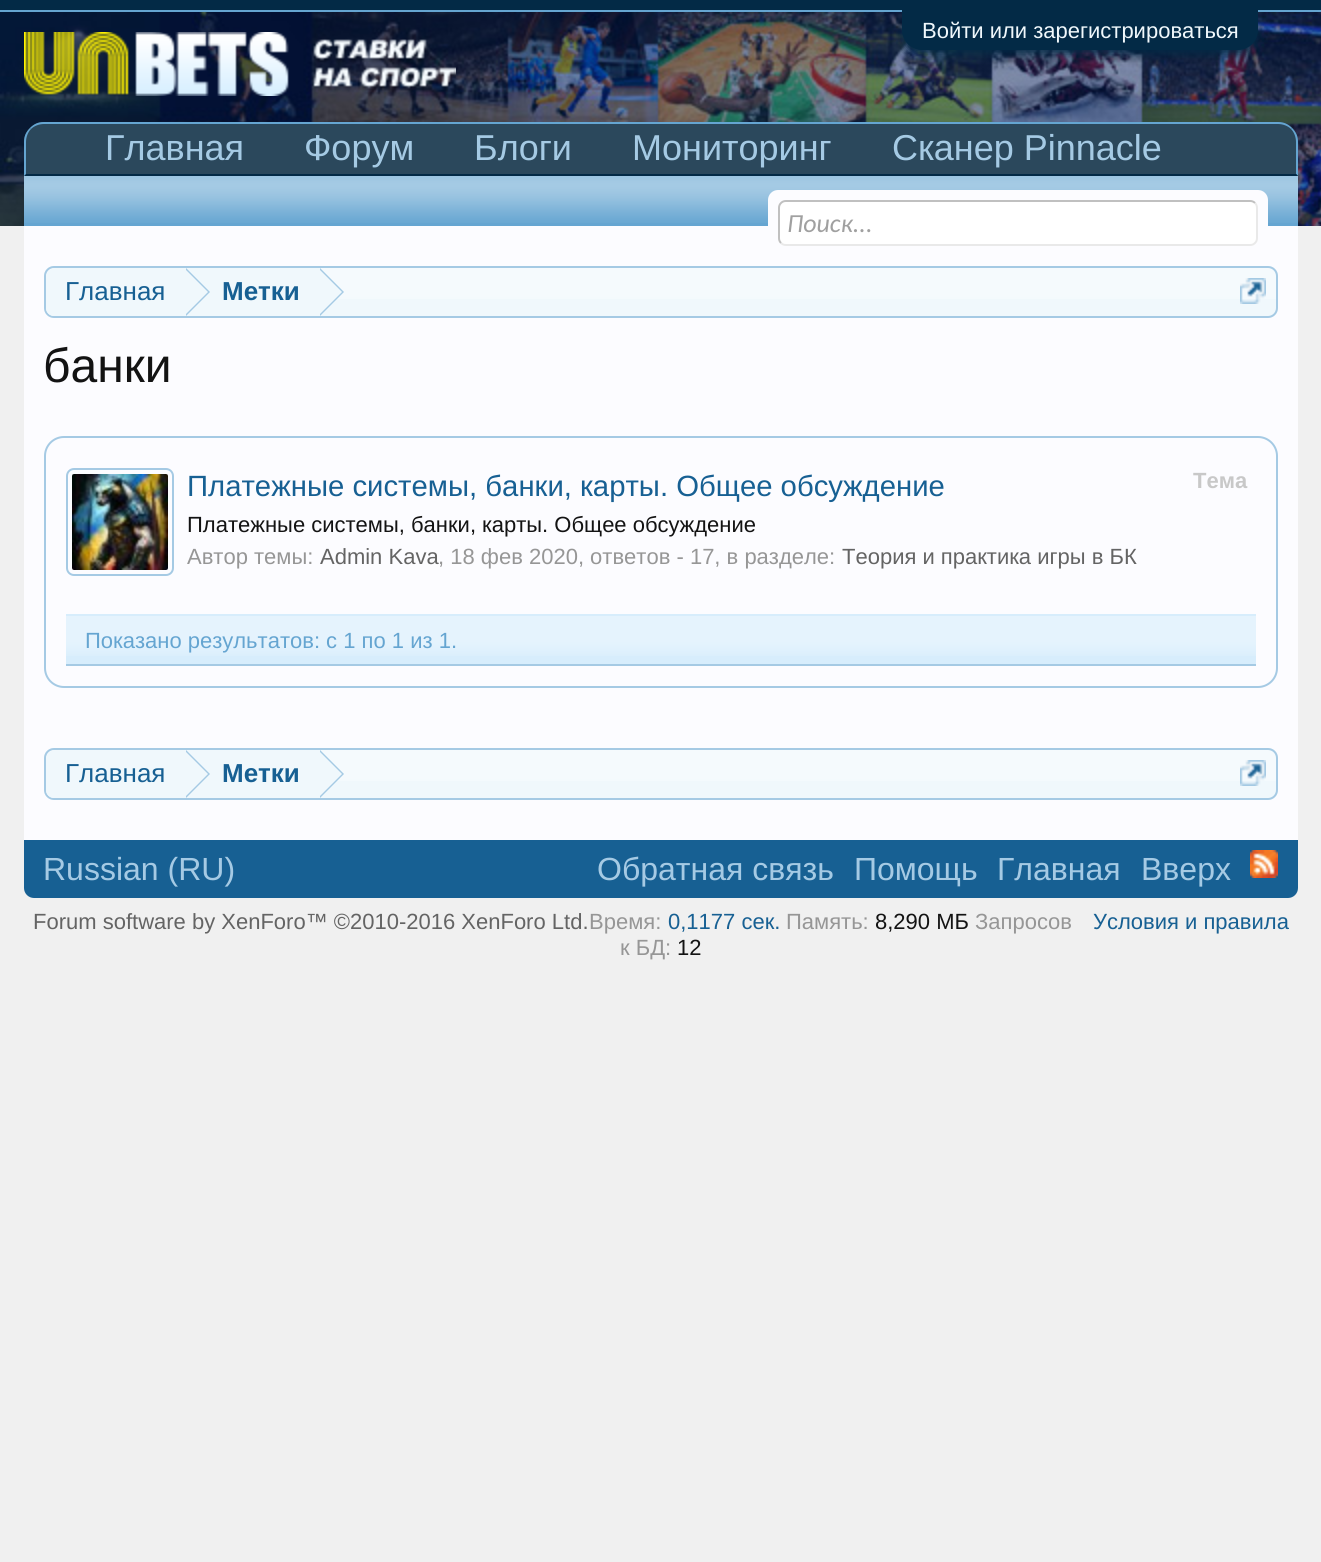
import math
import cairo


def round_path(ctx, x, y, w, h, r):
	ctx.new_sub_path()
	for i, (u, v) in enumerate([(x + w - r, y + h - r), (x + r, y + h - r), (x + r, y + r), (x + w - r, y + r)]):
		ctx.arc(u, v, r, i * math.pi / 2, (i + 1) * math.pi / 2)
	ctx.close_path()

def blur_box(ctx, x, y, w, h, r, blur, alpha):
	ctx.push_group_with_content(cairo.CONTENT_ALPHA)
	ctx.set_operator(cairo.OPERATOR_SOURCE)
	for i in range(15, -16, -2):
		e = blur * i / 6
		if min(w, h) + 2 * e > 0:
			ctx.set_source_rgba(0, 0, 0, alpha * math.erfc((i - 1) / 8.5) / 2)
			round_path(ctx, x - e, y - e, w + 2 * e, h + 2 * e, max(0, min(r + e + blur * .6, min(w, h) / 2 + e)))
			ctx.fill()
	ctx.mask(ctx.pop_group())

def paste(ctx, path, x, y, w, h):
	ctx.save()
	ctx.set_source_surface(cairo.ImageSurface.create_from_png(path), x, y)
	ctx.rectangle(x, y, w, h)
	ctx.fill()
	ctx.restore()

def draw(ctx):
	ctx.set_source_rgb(0.941, 0.941, 0.941)
	ctx.paint()
	ctx.set_source_rgb(0.012, 0.165, 0.275)
	ctx.rectangle(0, 0, 1321, 10)
	ctx.fill()
	ctx.set_source_rgb(0.396, 0.647, 0.82)
	ctx.rectangle(0, 10, 1321, 2)
	ctx.fill()
	paste(ctx, 'media/1.png', 0, 12, 1321, 214)
	ctx.set_source_rgb(0.012, 0.165, 0.275)
	blur_box(ctx, 902, 14, 356, 40, 20, 5, 1)
	ctx.set_source_rgb(0.012, 0.165, 0.275)
	ctx.new_path()
	ctx.move_to(902, 10)
	ctx.line_to(1258, 10)
	ctx.line_to(1258, 30)
	ctx.curve_to(1258, 41, 1249, 50, 1238, 50)
	ctx.line_to(922, 50)
	ctx.curve_to(911, 50, 902, 41, 902, 30)
	ctx.close_path()
	ctx.fill()
	ctx.select_font_face('Liberation Sans')
	ctx.set_font_size(22)
	ctx.set_source_rgb(0.941, 0.969, 0.988)
	ctx.move_to(922, 38)
	ctx.show_text('Войти или зарегистрироваться')
	paste(ctx, 'media/2.png', 24, 32, 432, 64)
	ctx.set_source_rgb(0.169, 0.282, 0.361)
	ctx.new_path()
	ctx.move_to(44, 122)
	ctx.line_to(1278, 122)
	ctx.curve_to(1289, 122, 1298, 131, 1298, 142)
	ctx.line_to(1298, 176)
	ctx.line_to(24, 176)
	ctx.line_to(24, 142)
	ctx.curve_to(24, 131, 33, 122, 44, 122)
	ctx.close_path()
	ctx.fill()
	ctx.set_source_rgb(0.396, 0.647, 0.82)
	ctx.new_path()
	ctx.move_to(44, 122)
	ctx.curve_to(38, 122, 34, 124, 30, 128)
	ctx.line_to(31, 129)
	ctx.curve_to(34, 126, 39, 124, 44, 124)
	ctx.line_to(1278, 124)
	ctx.curve_to(1283, 124, 1288, 126, 1291, 129)
	ctx.line_to(1292, 128)
	ctx.curve_to(1288, 124, 1284, 122, 1278, 122)
	ctx.close_path()
	ctx.fill()
	ctx.new_path()
	ctx.move_to(1298, 176)
	ctx.line_to(1298, 142)
	ctx.curve_to(1298, 136, 1296, 132, 1292, 128)
	ctx.line_to(1291, 129)
	ctx.curve_to(1294, 132, 1296, 137, 1296, 142)
	ctx.line_to(1296, 174)
	ctx.close_path()
	ctx.fill()
	ctx.set_source_rgb(0.012, 0.165, 0.275)
	ctx.new_path()
	ctx.move_to(1298, 176)
	ctx.line_to(1296, 174)
	ctx.line_to(26, 174)
	ctx.line_to(24, 176)
	ctx.close_path()
	ctx.fill()
	ctx.set_source_rgb(0.396, 0.647, 0.82)
	ctx.new_path()
	ctx.move_to(24, 176)
	ctx.line_to(26, 174)
	ctx.line_to(26, 142)
	ctx.curve_to(26, 137, 28, 132, 31, 129)
	ctx.line_to(30, 128)
	ctx.curve_to(26, 132, 24, 136, 24, 142)
	ctx.close_path()
	ctx.fill()
	ctx.set_font_size(36)
	ctx.set_source_rgb(0.647, 0.792, 0.894)
	for x, y, s in [
		(105, 160, 'Главная'),
		(304, 160, 'Форум'),
		(474, 160, 'Блоги'),
		(632, 160, 'Мониторинг'),
		(892, 160, 'Сканер Pinnacle'),
	]:
		ctx.move_to(x, y)
		ctx.show_text(s)
	ctx.set_source_rgb(0.396, 0.647, 0.82)
	ctx.rectangle(24, 176, 1274, 50)
	ctx.fill()
	paste(ctx, 'media/3.png', 24, 176, 1274, 47)
	ctx.set_source_rgb(0.988, 0.988, 1)
	ctx.rectangle(24, 226, 1274, 614)
	ctx.fill()
	round_path(ctx, 768, 190, 500, 56, 10)
	ctx.fill()
	ctx.set_source_rgb(1, 1, 1)
	round_path(ctx, 778, 200, 480, 46, 8)
	ctx.fill()
	ctx.new_path()
	ctx.move_to(1255, 203)
	ctx.curve_to(1256.5, 204.5, 1257, 206, 1257, 208)
	ctx.line_to(1257, 238)
	ctx.curve_to(1257, 240, 1256.5, 241.5, 1255, 243)
	ctx.curve_to(1253.5, 244.5, 1252, 245, 1250, 245)
	ctx.line_to(786, 245)
	ctx.curve_to(784, 245, 782.5, 244.5, 781, 243)
	ctx.set_source_rgb(0.914, 0.914, 0.914)
	ctx.stroke()
	ctx.new_path()
	ctx.move_to(781, 243)
	ctx.curve_to(779.5, 241.5, 779, 240, 779, 238)
	ctx.line_to(779, 208)
	ctx.curve_to(779, 206, 779.5, 204.5, 781, 203)
	ctx.curve_to(782.5, 201.5, 784, 201, 786, 201)
	ctx.line_to(1250, 201)
	ctx.curve_to(1252, 201, 1253.5, 201.5, 1255, 203)
	ctx.set_source_rgb(0.753, 0.753, 0.753)
	ctx.stroke()
	ctx.select_font_face('Carlito', cairo.FONT_SLANT_ITALIC)
	ctx.set_font_size(26)
	ctx.set_source_rgb(0.627, 0.627, 0.627)
	ctx.move_to(787, 232)
	ctx.show_text('Поиск...')
	ctx.set_source_rgb(0.941, 0.969, 0.988)
	round_path(ctx, 44, 266, 1234, 52, 10)
	ctx.fill()
	paste(ctx, 'media/4.png', 44, 268, 1234, 31)
	round_path(ctx, 45, 267, 1232, 50, 9)
	ctx.set_source_rgb(0.647, 0.792, 0.894)
	ctx.stroke()
	ctx.save()
	round_path(ctx, 46, 268, 1230, 48, 8)
	ctx.clip()
	ctx.set_source_rgb(0.941, 0.969, 0.988)
	ctx.new_path()
	ctx.move_to(56, 268)
	ctx.line_to(186, 268)
	ctx.line_to(186, 318)
	ctx.line_to(56, 318)
	ctx.curve_to(50.5, 318, 46, 313.5, 46, 308)
	ctx.line_to(46, 278)
	ctx.curve_to(46, 272.5, 50.5, 268, 56, 268)
	ctx.close_path()
	ctx.fill()
	ctx.restore()
	ctx.select_font_face('Liberation Sans')
	ctx.set_source_rgb(0.09, 0.376, 0.576)
	ctx.move_to(65, 300)
	ctx.show_text('Главная')
	ctx.set_source_rgb(0.941, 0.969, 0.988)
	ctx.rectangle(186, 268, 134, 31)
	ctx.fill()
	ctx.set_source_rgb(0.647, 0.792, 0.894)
	ctx.new_path()
	ctx.move_to(186, 316)
	ctx.line_to(186, 268)
	ctx.line_to(210, 292)
	ctx.close_path()
	ctx.fill()
	ctx.set_source_rgb(0.941, 0.969, 0.988)
	ctx.new_path()
	ctx.move_to(184, 316)
	ctx.line_to(184, 268)
	ctx.line_to(208, 292)
	ctx.close_path()
	ctx.fill()
	ctx.select_font_face('Liberation Sans', cairo.FONT_SLANT_NORMAL, cairo.FONT_WEIGHT_BOLD)
	ctx.set_source_rgb(0.09, 0.376, 0.576)
	ctx.move_to(222, 300)
	ctx.show_text('Метки')
	ctx.set_source_rgb(0.647, 0.792, 0.894)
	ctx.new_path()
	ctx.move_to(320, 316)
	ctx.line_to(320, 268)
	ctx.line_to(344, 292)
	ctx.close_path()
	ctx.fill()
	ctx.set_source_rgb(0.941, 0.969, 0.988)
	ctx.new_path()
	ctx.move_to(318, 316)
	ctx.line_to(318, 268)
	ctx.line_to(342, 292)
	ctx.close_path()
	ctx.fill()
	paste(ctx, 'media/5.png', 1240, 278, 26, 26)
	ctx.select_font_face('Liberation Sans')
	ctx.set_font_size(48)
	ctx.set_source_rgb(0.078, 0.078, 0.078)
	ctx.move_to(43, 382)
	ctx.show_text('банки')
	round_path(ctx, 45, 437, 1232, 250, 19)
	ctx.set_source_rgb(0.647, 0.792, 0.894)
	ctx.stroke()
	ctx.set_source_rgb(0.843, 0.929, 0.988)
	ctx.rectangle(66, 614, 1190, 50)
	ctx.fill()
	round_path(ctx, 67, 469, 106, 106, 7)
	ctx.set_source_rgb(0.647, 0.792, 0.894)
	ctx.stroke()
	paste(ctx, 'media/6.png', 72, 474, 96, 96)
	ctx.set_font_size(29.3)
	ctx.set_source_rgb(0.09, 0.376, 0.576)
	ctx.move_to(187, 496)
	ctx.show_text('Платежные системы, банки, карты. Общее обсуждение')
	ctx.select_font_face('Liberation Sans', cairo.FONT_SLANT_NORMAL, cairo.FONT_WEIGHT_BOLD)
	ctx.set_font_size(22)
	ctx.set_source_rgb(0.784, 0.784, 0.784)
	ctx.move_to(1193, 488)
	ctx.show_text('Тема')
	ctx.select_font_face('Liberation Sans')
	ctx.set_source_rgb(0.078, 0.078, 0.078)
	ctx.move_to(187, 532)
	ctx.show_text('Платежные системы, банки, карты. Общее обсуждение')
	ctx.set_source_rgb(0.588, 0.588, 0.588)
	ctx.move_to(187, 564)
	ctx.show_text('Автор темы:')
	ctx.set_source_rgb(0.392, 0.392, 0.392)
	ctx.move_to(320, 564)
	ctx.show_text('Admin Kava')
	ctx.set_source_rgb(0.588, 0.588, 0.588)
	ctx.move_to(438, 564)
	ctx.show_text(', 18 фев 2020, ответов - 17, в разделе:')
	ctx.set_source_rgb(0.392, 0.392, 0.392)
	ctx.move_to(842, 564)
	ctx.show_text('Теория и практика игры в БК')
	paste(ctx, 'media/7.png', 66, 616, 1190, 40)
	ctx.set_source_rgb(0.647, 0.792, 0.894)
	ctx.rectangle(66, 664, 1190, 2)
	ctx.fill()
	ctx.set_source_rgb(0.396, 0.647, 0.82)
	ctx.move_to(85, 648)
	ctx.show_text('Показано результатов: с 1 по 1 из 1.')
	ctx.set_source_rgb(0.941, 0.969, 0.988)
	round_path(ctx, 44, 748, 1234, 52, 10)
	ctx.fill()
	paste(ctx, 'media/4.png', 44, 750, 1234, 31)
	round_path(ctx, 45, 749, 1232, 50, 9)
	ctx.set_source_rgb(0.647, 0.792, 0.894)
	ctx.stroke()
	ctx.save()
	round_path(ctx, 46, 750, 1230, 48, 8)
	ctx.clip()
	ctx.set_source_rgb(0.941, 0.969, 0.988)
	ctx.new_path()
	ctx.move_to(56, 750)
	ctx.line_to(186, 750)
	ctx.line_to(186, 800)
	ctx.line_to(56, 800)
	ctx.curve_to(50.5, 800, 46, 795.5, 46, 790)
	ctx.line_to(46, 760)
	ctx.curve_to(46, 754.5, 50.5, 750, 56, 750)
	ctx.close_path()
	ctx.fill()
	ctx.restore()
	ctx.set_font_size(26)
	ctx.set_source_rgb(0.09, 0.376, 0.576)
	ctx.move_to(65, 782)
	ctx.show_text('Главная')
	ctx.set_source_rgb(0.941, 0.969, 0.988)
	ctx.rectangle(186, 750, 134, 31)
	ctx.fill()
	ctx.set_source_rgb(0.647, 0.792, 0.894)
	ctx.new_path()
	ctx.move_to(186, 798)
	ctx.line_to(186, 750)
	ctx.line_to(210, 774)
	ctx.close_path()
	ctx.fill()
	ctx.set_source_rgb(0.941, 0.969, 0.988)
	ctx.new_path()
	ctx.move_to(184, 798)
	ctx.line_to(184, 750)
	ctx.line_to(208, 774)
	ctx.close_path()
	ctx.fill()
	ctx.select_font_face('Liberation Sans', cairo.FONT_SLANT_NORMAL, cairo.FONT_WEIGHT_BOLD)
	ctx.set_source_rgb(0.09, 0.376, 0.576)
	ctx.move_to(222, 782)
	ctx.show_text('Метки')
	ctx.set_source_rgb(0.647, 0.792, 0.894)
	ctx.new_path()
	ctx.move_to(320, 798)
	ctx.line_to(320, 750)
	ctx.line_to(344, 774)
	ctx.close_path()
	ctx.fill()
	ctx.set_source_rgb(0.941, 0.969, 0.988)
	ctx.new_path()
	ctx.move_to(318, 798)
	ctx.line_to(318, 750)
	ctx.line_to(342, 774)
	ctx.close_path()
	ctx.fill()
	paste(ctx, 'media/5.png', 1240, 760, 26, 26)
	ctx.set_source_rgb(0.09, 0.376, 0.576)
	ctx.new_path()
	ctx.move_to(24, 840)
	ctx.line_to(1298, 840)
	ctx.line_to(1298, 888)
	ctx.curve_to(1298, 893.5, 1293.5, 898, 1288, 898)
	ctx.line_to(34, 898)
	ctx.curve_to(28.5, 898, 24, 893.5, 24, 888)
	ctx.close_path()
	ctx.fill()
	ctx.select_font_face('Liberation Sans')
	ctx.set_font_size(32)
	ctx.set_source_rgb(0.647, 0.792, 0.894)
	for x, y, s in [
		(43, 880, 'Russian (RU)'),
		(597, 880, 'Обратная связь'),
		(854, 880, 'Помощь'),
		(997, 880, 'Главная'),
		(1141, 880, 'Вверх'),
	]:
		ctx.move_to(x, y)
		ctx.show_text(s)
	paste(ctx, 'media/8.png', 1250, 850, 28, 28)
	ctx.set_font_size(22)
	ctx.set_source_rgb(0.392, 0.392, 0.392)
	ctx.move_to(33, 929)
	ctx.show_text('Forum software by XenForo™ ©2010-2016 XenForo Ltd.')
	ctx.set_source_rgb(0.588, 0.588, 0.588)
	ctx.move_to(589, 929)
	ctx.show_text('Время:')
	ctx.set_source_rgb(0.09, 0.376, 0.576)
	ctx.move_to(668, 929)
	ctx.show_text('0,1177 сек.')
	ctx.set_source_rgb(0.588, 0.588, 0.588)
	ctx.move_to(786, 929)
	ctx.show_text('Память:')
	ctx.set_source_rgb(0.078, 0.078, 0.078)
	ctx.move_to(875, 929)
	ctx.show_text('8,290 МБ')
	ctx.set_source_rgb(0.588, 0.588, 0.588)
	ctx.move_to(975, 929)
	ctx.show_text('Запросов')
	ctx.move_to(620, 955)
	ctx.show_text('к БД:')
	ctx.set_source_rgb(0.078, 0.078, 0.078)
	ctx.move_to(677, 955)
	ctx.show_text('12')
	ctx.set_source_rgb(0.09, 0.376, 0.576)
	ctx.move_to(1093, 929)
	ctx.show_text('Условия и правила')


surface = cairo.ImageSurface(cairo.FORMAT_RGB24, 1321, 1562)
ctx = cairo.Context(surface)
options = cairo.FontOptions()
options.set_hint_metrics(cairo.HINT_METRICS_OFF)
options.set_hint_style(cairo.HINT_STYLE_NONE)
ctx.set_font_options(options)
ctx.set_miter_limit(4)
draw(ctx)
surface.write_to_png('image.png')
